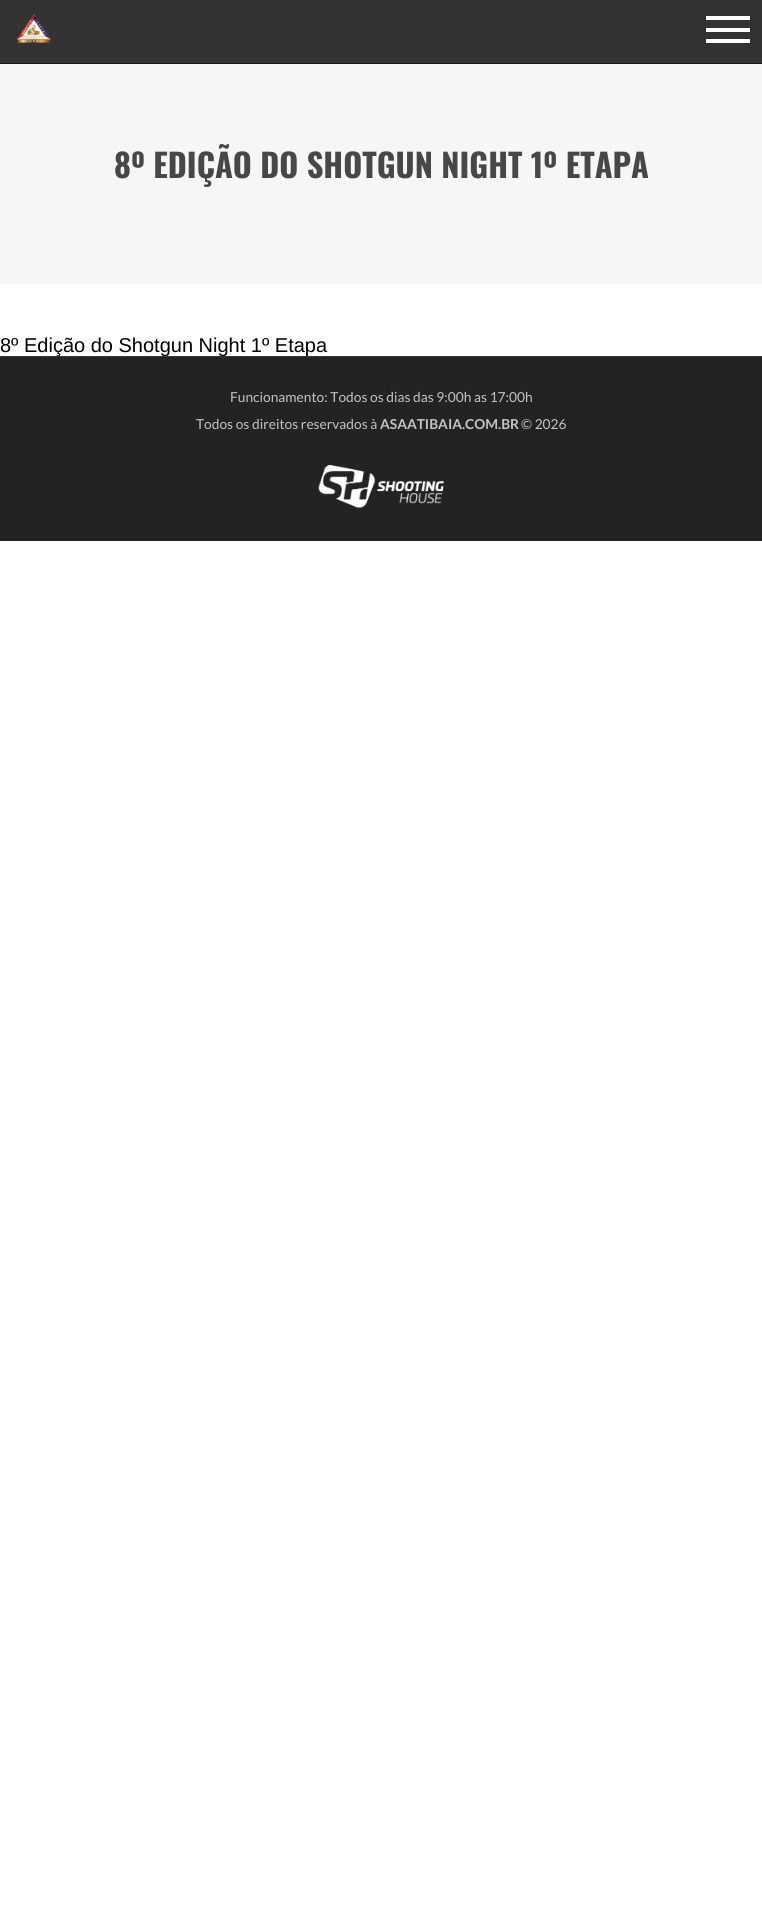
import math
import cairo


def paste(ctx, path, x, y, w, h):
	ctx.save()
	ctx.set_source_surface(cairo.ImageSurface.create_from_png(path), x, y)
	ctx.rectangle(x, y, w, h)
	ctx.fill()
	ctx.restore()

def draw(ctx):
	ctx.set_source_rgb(1, 1, 1)
	ctx.paint()
	gradient = cairo.LinearGradient(381, 62, 381, 64)
	gradient.add_color_stop_rgba(0, 0.208, 0.208, 0.208, 1)
	gradient.add_color_stop_rgba(1, 0.039, 0.039, 0.039, 1)
	ctx.set_source(gradient)
	ctx.rectangle(0, 63, 762, 1)
	ctx.fill()
	ctx.set_source_rgb(0.2, 0.2, 0.2)
	ctx.rectangle(0, 0, 762, 63)
	ctx.fill()
	paste(ctx, 'media/1.png', 17, 14, 34, 29)
	ctx.set_source_rgb(1, 1, 1)
	ctx.rectangle(706, 28, 44, 4)
	ctx.rectangle(706, 16, 44, 4)
	ctx.rectangle(706, 39, 44, 4)
	ctx.fill()
	ctx.set_source_rgb(0.961, 0.961, 0.961)
	ctx.rectangle(0, 64, 762, 220)
	ctx.fill()
	ctx.select_font_face('Oswald', cairo.FONT_SLANT_NORMAL, cairo.FONT_WEIGHT_BOLD)
	ctx.set_font_size(32.5)
	ctx.set_source_rgb(0.278, 0.278, 0.278)
	ctx.move_to(114, 178)
	ctx.show_text('8º EDIÇÃO DO SHOTGUN NIGHT 1º ETAPA')
	ctx.select_font_face('Liberation Sans')
	ctx.set_font_size(20)
	ctx.set_source_rgb(0, 0, 0)
	ctx.move_to(0, 352)
	ctx.show_text('8º Edição do Shotgun Night 1º Etapa')
	ctx.set_source_rgb(0.137, 0.137, 0.137)
	ctx.rectangle(0, 357, 762, 184)
	ctx.fill()
	ctx.set_source_rgb(0.216, 0.216, 0.216)
	ctx.rectangle(0, 356, 762, 1)
	ctx.fill()
	ctx.select_font_face('Lato')
	ctx.set_font_size(13.75)
	ctx.set_source_rgb(0.769, 0.769, 0.769)
	ctx.move_to(230, 402)
	ctx.show_text('Funcionamento: Todos os dias das 9:00h as 17:00h')
	ctx.move_to(196, 429)
	ctx.show_text('Todos os direitos reservados à')
	ctx.select_font_face('Lato', cairo.FONT_SLANT_NORMAL, cairo.FONT_WEIGHT_BOLD)
	ctx.move_to(380, 429)
	ctx.show_text('ASAATIBAIA.COM.BR')
	ctx.select_font_face('Lato')
	ctx.move_to(521, 429)
	ctx.show_text('© 2026')
	paste(ctx, 'media/2.png', 318, 465, 126, 43)


surface = cairo.ImageSurface(cairo.FORMAT_RGB24, 762, 1931)
ctx = cairo.Context(surface)
options = cairo.FontOptions()
options.set_hint_metrics(cairo.HINT_METRICS_OFF)
options.set_hint_style(cairo.HINT_STYLE_NONE)
ctx.set_font_options(options)
ctx.set_miter_limit(4)
draw(ctx)
surface.write_to_png('image.png')
